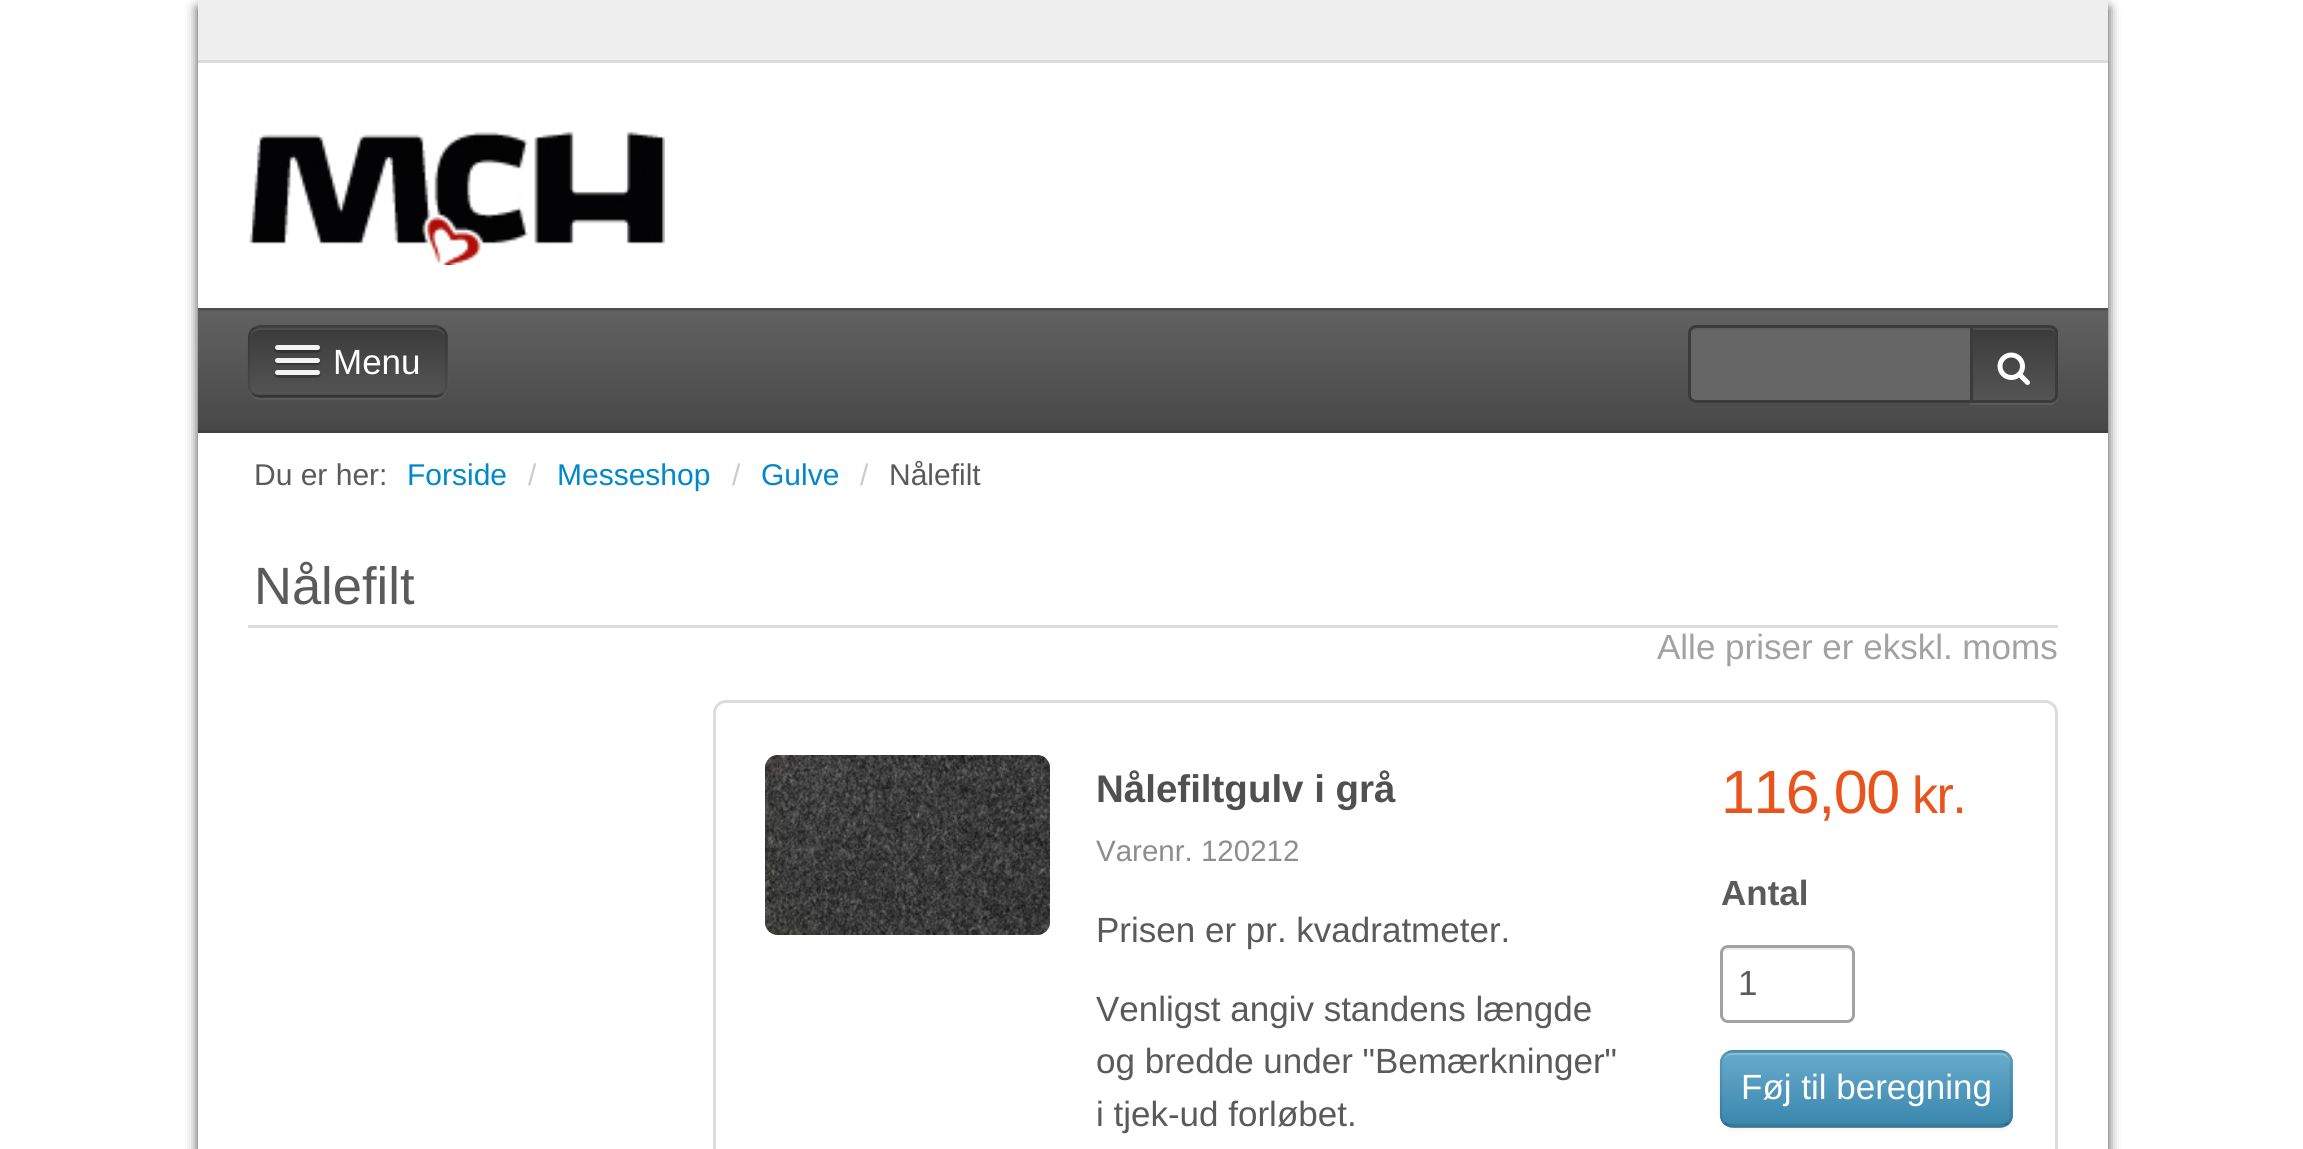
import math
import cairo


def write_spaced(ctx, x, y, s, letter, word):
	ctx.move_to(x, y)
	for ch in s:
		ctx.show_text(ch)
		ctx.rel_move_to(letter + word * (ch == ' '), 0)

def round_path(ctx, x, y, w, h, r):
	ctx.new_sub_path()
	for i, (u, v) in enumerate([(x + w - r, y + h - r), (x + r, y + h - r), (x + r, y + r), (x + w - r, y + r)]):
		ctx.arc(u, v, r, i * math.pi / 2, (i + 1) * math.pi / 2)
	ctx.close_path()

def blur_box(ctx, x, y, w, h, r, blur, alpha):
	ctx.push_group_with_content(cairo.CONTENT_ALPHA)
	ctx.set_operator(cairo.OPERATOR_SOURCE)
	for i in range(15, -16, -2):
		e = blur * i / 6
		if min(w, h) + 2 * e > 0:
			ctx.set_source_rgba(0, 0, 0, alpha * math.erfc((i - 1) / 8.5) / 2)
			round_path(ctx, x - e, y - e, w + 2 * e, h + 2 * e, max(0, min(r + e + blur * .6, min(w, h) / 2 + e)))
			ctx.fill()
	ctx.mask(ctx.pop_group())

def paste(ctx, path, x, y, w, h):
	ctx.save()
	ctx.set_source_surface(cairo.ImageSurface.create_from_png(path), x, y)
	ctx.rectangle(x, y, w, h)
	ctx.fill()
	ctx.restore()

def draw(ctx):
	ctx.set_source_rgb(1, 1, 1)
	ctx.paint()
	ctx.set_source_rgb(0, 0, 0)
	blur_box(ctx, 198, 8, 1910, 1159, 0, 6, 0.75)
	ctx.set_source_rgb(0.933, 0.933, 0.933)
	ctx.rectangle(198, 0, 1910, 60)
	ctx.fill()
	ctx.set_source_rgb(0.863, 0.863, 0.863)
	ctx.rectangle(198, 60, 1910, 3)
	ctx.fill()
	ctx.set_source_rgb(1, 1, 1)
	ctx.rectangle(198, 63, 1910, 245)
	ctx.fill()
	paste(ctx, 'media/1.png', 249, 131, 416, 134)
	ctx.set_source_rgb(0.341, 0.341, 0.341)
	ctx.rectangle(198, 308, 1910, 2)
	ctx.fill()
	gradient = cairo.LinearGradient(1153, 310, 1153, 430)
	gradient.add_color_stop_rgba(0, 0.38, 0.38, 0.38, 1)
	gradient.add_color_stop_rgba(1, 0.282, 0.282, 0.282, 1)
	ctx.set_source(gradient)
	ctx.rectangle(198, 310, 1910, 120)
	ctx.fill()
	ctx.set_source_rgba(0, 0, 0, 0.1)
	ctx.rectangle(198, 308, 1910, 3)
	ctx.fill()
	ctx.set_source_rgb(0.255, 0.255, 0.255)
	ctx.rectangle(198, 430, 1910, 3)
	ctx.fill()
	ctx.set_source_rgba(1, 1, 1, 0.07)
	ctx.new_path()
	ctx.move_to(248, 389)
	ctx.curve_to(249, 395, 254, 400, 261, 400)
	ctx.line_to(435, 400)
	ctx.curve_to(442, 400, 448, 394, 448, 387)
	ctx.line_to(448, 341)
	ctx.line_to(447, 337)
	ctx.line_to(448, 369)
	ctx.curve_to(448, 379, 451, 397, 435, 398)
	ctx.line_to(258, 397)
	ctx.curve_to(253, 397, 250, 393, 248, 389)
	ctx.close_path()
	ctx.fill()
	ctx.set_source_rgb(0.271, 0.271, 0.271)
	round_path(ctx, 248, 325, 200, 73, 13)
	ctx.fill()
	ctx.save()
	round_path(ctx, 248, 325, 200, 73, 13)
	ctx.clip()
	gradient = cairo.LinearGradient(348, 328, 348, 395)
	gradient.add_color_stop_rgba(0, 0.231, 0.231, 0.231, 1)
	gradient.add_color_stop_rgba(1, 0.329, 0.329, 0.329, 1)
	ctx.set_source(gradient)
	ctx.rectangle(248, 328, 200, 67)
	ctx.fill()
	ctx.restore()
	ctx.set_source_rgba(1, 1, 1, 0.1)
	ctx.new_path()
	ctx.move_to(260, 330)
	ctx.line_to(435, 330)
	ctx.curve_to(441, 330, 445, 334, 445, 340)
	ctx.line_to(445, 338)
	ctx.curve_to(445, 332, 441, 328, 435, 328)
	ctx.line_to(260, 328)
	ctx.curve_to(254, 328, 250, 332, 250, 338)
	ctx.line_to(250, 340)
	ctx.curve_to(250, 334, 254, 330, 260, 330)
	ctx.close_path()
	ctx.fill()
	ctx.new_path()
	ctx.move_to(443, 393)
	ctx.curve_to(441, 395, 438, 396, 435, 396)
	ctx.line_to(260, 396)
	ctx.curve_to(257, 396, 254, 395, 252, 393)
	ctx.set_source_rgba(0, 0, 0, 0.25)
	ctx.set_line_width(2.5)
	ctx.stroke()
	ctx.new_path()
	ctx.move_to(252, 393)
	ctx.curve_to(250, 391, 249, 388, 249, 385)
	ctx.line_to(249, 337.5)
	ctx.curve_to(249, 334.5, 250, 331.5, 252, 329.5)
	ctx.curve_to(254, 327.5, 257, 326, 260, 326)
	ctx.line_to(435, 326)
	ctx.curve_to(438, 326, 441, 327.5, 443, 329.5)
	ctx.curve_to(445, 331.5, 446, 334.5, 446, 337.5)
	ctx.line_to(446, 385)
	ctx.curve_to(446, 388, 445, 391, 443, 393)
	ctx.set_source_rgba(0, 0, 0, 0.1)
	ctx.stroke()
	ctx.set_source_rgb(0.2, 0.2, 0.2)
	ctx.new_path()
	ctx.move_to(275, 349)
	ctx.curve_to(272, 353, 280, 353, 284, 353)
	ctx.line_to(311, 353)
	ctx.curve_to(315, 353, 323, 353, 320, 349)
	ctx.line_to(318, 350)
	ctx.line_to(277, 350)
	ctx.close_path()
	ctx.fill()
	ctx.set_source_rgb(0.953, 0.953, 0.953)
	round_path(ctx, 275, 345, 45, 5, 2.5)
	ctx.fill()
	ctx.select_font_face('Liberation Sans')
	ctx.set_font_size(35)
	ctx.set_source_rgb(1, 1, 1)
	ctx.move_to(333, 374)
	ctx.show_text('Menu')
	ctx.set_source_rgb(0.212, 0.212, 0.212)
	ctx.new_path()
	ctx.move_to(275, 361)
	ctx.curve_to(272, 366, 284, 365, 284, 365)
	ctx.line_to(311, 365)
	ctx.curve_to(311, 365, 323, 366, 320, 361)
	ctx.curve_to(319, 362, 318, 362, 318, 362)
	ctx.line_to(278, 362)
	ctx.curve_to(277, 362, 276, 362, 275, 361)
	ctx.close_path()
	ctx.fill()
	ctx.set_source_rgb(0.953, 0.953, 0.953)
	round_path(ctx, 275, 358, 45, 5, 2.5)
	ctx.fill()
	ctx.set_source_rgb(0.227, 0.227, 0.227)
	ctx.new_path()
	ctx.move_to(275, 374)
	ctx.curve_to(272, 378, 280, 378, 284, 378)
	ctx.line_to(311, 378)
	ctx.curve_to(315, 378, 323, 378, 320, 374)
	ctx.line_to(318, 375)
	ctx.line_to(277, 375)
	ctx.close_path()
	ctx.fill()
	ctx.set_source_rgb(0.953, 0.953, 0.953)
	round_path(ctx, 275, 370, 45, 5, 2.5)
	ctx.fill()
	ctx.set_source_rgb(0.357, 0.357, 0.357)
	ctx.new_path()
	ctx.move_to(1970, 402)
	ctx.line_to(1970, 405)
	ctx.line_to(2050, 405)
	ctx.curve_to(2054, 405, 2058, 401, 2058, 397)
	ctx.line_to(2058, 336)
	ctx.line_to(2058, 333)
	ctx.line_to(2058, 395)
	ctx.curve_to(2058, 399, 2054, 402, 2050, 402)
	ctx.close_path()
	ctx.fill()
	ctx.save()
	ctx.new_path()
	ctx.move_to(1970, 325)
	ctx.line_to(2050, 325)
	ctx.curve_to(2054.5, 325, 2058, 328.5, 2058, 333)
	ctx.line_to(2058, 395)
	ctx.curve_to(2058, 399.5, 2054.5, 403, 2050, 403)
	ctx.line_to(1970, 403)
	ctx.close_path()
	ctx.clip()
	gradient = cairo.LinearGradient(2014, 328, 2014, 400)
	gradient.add_color_stop_rgba(0, 0.231, 0.231, 0.231, 1)
	gradient.add_color_stop_rgba(1, 0.329, 0.329, 0.329, 1)
	ctx.set_source(gradient)
	ctx.rectangle(1973, 328, 85, 72)
	ctx.fill()
	ctx.restore()
	ctx.set_source_rgb(0.31, 0.31, 0.31)
	ctx.new_path()
	ctx.move_to(1973, 328)
	ctx.line_to(1973, 330)
	ctx.line_to(2050, 330)
	ctx.curve_to(2053, 330, 2055, 332, 2055, 335)
	ctx.curve_to(2055, 332, 2054, 328, 2050, 328)
	ctx.close_path()
	ctx.fill()
	ctx.new_path()
	ctx.move_to(1971.5, 326.5)
	ctx.line_to(2050, 326.5)
	ctx.curve_to(2053.5, 326.5, 2056.5, 329.5, 2056.5, 333)
	ctx.line_to(2056.5, 395)
	ctx.curve_to(2056.5, 398.5, 2053.5, 401.5, 2050, 401.5)
	ctx.line_to(1971.5, 401.5)
	ctx.close_path()
	ctx.set_source_rgb(0.231, 0.231, 0.231)
	ctx.set_line_width(3)
	ctx.stroke()
	ctx.set_source_rgb(0.4, 0.4, 0.4)
	ctx.new_path()
	ctx.move_to(1696, 325)
	ctx.line_to(1973, 325)
	ctx.line_to(1973, 403)
	ctx.line_to(1696, 403)
	ctx.curve_to(1691.5, 403, 1688, 399.5, 1688, 395)
	ctx.line_to(1688, 333)
	ctx.curve_to(1688, 328.5, 1691.5, 325, 1696, 325)
	ctx.close_path()
	ctx.fill()
	ctx.set_source_rgb(0.369, 0.369, 0.369)
	ctx.new_path()
	ctx.move_to(1695, 330)
	ctx.line_to(1970, 330)
	ctx.line_to(1970, 328)
	ctx.line_to(1694, 328)
	ctx.curve_to(1690, 329, 1690, 332, 1690, 335)
	ctx.curve_to(1690, 332, 1692, 330, 1695, 330)
	ctx.close_path()
	ctx.fill()
	ctx.new_path()
	ctx.move_to(1696, 326.5)
	ctx.line_to(1971.5, 326.5)
	ctx.line_to(1971.5, 401.5)
	ctx.line_to(1696, 401.5)
	ctx.curve_to(1692.5, 401.5, 1689.5, 398.5, 1689.5, 395)
	ctx.line_to(1689.5, 333)
	ctx.curve_to(1689.5, 329.5, 1692.5, 326.5, 1696, 326.5)
	ctx.close_path()
	ctx.set_source_rgb(0.231, 0.231, 0.231)
	ctx.stroke()
	paste(ctx, 'media/2.png', 1997, 352, 33, 33)
	ctx.set_source_rgb(1, 1, 1)
	ctx.rectangle(198, 433, 1910, 716)
	ctx.fill()
	ctx.set_font_size(30)
	ctx.set_source_rgb(0.353, 0.353, 0.353)
	ctx.move_to(254, 485)
	ctx.show_text('Du er her:')
	ctx.set_source_rgb(0, 0.533, 0.8)
	ctx.move_to(407, 485)
	ctx.show_text('Forside')
	ctx.set_source_rgb(0.8, 0.8, 0.8)
	ctx.move_to(528, 485)
	ctx.show_text('/')
	ctx.set_source_rgb(0, 0.533, 0.8)
	ctx.move_to(557, 485)
	ctx.show_text('Messeshop')
	ctx.set_source_rgb(0.8, 0.8, 0.8)
	ctx.move_to(732, 485)
	ctx.show_text('/')
	ctx.set_source_rgb(0, 0.533, 0.8)
	ctx.move_to(761, 485)
	ctx.show_text('Gulve')
	ctx.set_source_rgb(0.8, 0.8, 0.8)
	ctx.move_to(860, 485)
	ctx.show_text('/')
	ctx.set_source_rgb(0.353, 0.353, 0.353)
	ctx.move_to(889, 485)
	ctx.show_text('Nålefilt')
	ctx.set_font_size(52.5)
	ctx.move_to(254, 604)
	ctx.show_text('Nålefilt')
	ctx.set_source_rgb(0.863, 0.863, 0.863)
	ctx.rectangle(248, 625, 1810, 3)
	ctx.fill()
	ctx.set_font_size(35)
	ctx.set_source_rgb(0.635, 0.635, 0.635)
	ctx.move_to(1657, 659)
	ctx.show_text('Alle priser er ekskl. moms')
	round_path(ctx, 714.5, 701.5, 1342, 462, 11.5)
	ctx.set_source_rgb(0.863, 0.863, 0.863)
	ctx.stroke()
	paste(ctx, 'media/3.png', 765, 755, 285, 180)
	ctx.select_font_face('Liberation Sans', cairo.FONT_SLANT_NORMAL, cairo.FONT_WEIGHT_BOLD)
	ctx.set_font_size(38.5)
	ctx.set_source_rgb(0.314, 0.314, 0.314)
	ctx.move_to(1096, 802)
	ctx.show_text('Nålefiltgulv i grå')
	ctx.select_font_face('Liberation Sans')
	ctx.set_font_size(29.5)
	ctx.set_source_rgb(0.553, 0.553, 0.553)
	ctx.move_to(1096, 861)
	ctx.show_text('Varenr. 120212')
	ctx.set_font_size(35)
	ctx.set_source_rgb(0.353, 0.353, 0.353)
	for x, y, s in [
		(1096, 942, 'Prisen er pr. kvadratmeter.'),
		(1096, 1021, 'Venligst angiv standens længde'),
		(1096, 1073, 'og bredde under "Bemærkninger"'),
		(1096, 1126, 'i tjek-ud forløbet.'),
	]:
		ctx.move_to(x, y)
		ctx.show_text(s)
	ctx.set_font_size(61)
	ctx.set_source_rgb(0.914, 0.325, 0.11)
	write_spaced(ctx, 1721, 813, '116,00', -1.5, 0)
	ctx.set_font_size(52)
	write_spaced(ctx, 1912, 813, 'kr.', -1.5, 0)
	ctx.select_font_face('Liberation Sans', cairo.FONT_SLANT_NORMAL, cairo.FONT_WEIGHT_BOLD)
	ctx.set_font_size(35)
	ctx.set_source_rgb(0.353, 0.353, 0.353)
	ctx.move_to(1721, 905)
	ctx.show_text('Antal')
	ctx.set_source_rgb(0.925, 0.925, 0.925)
	ctx.new_path()
	ctx.move_to(1728, 950)
	ctx.line_to(1848, 950)
	ctx.curve_to(1850, 950, 1852, 952, 1852, 955)
	ctx.line_to(1852, 1018)
	ctx.curve_to(1853, 1017, 1853, 1016, 1853, 1015)
	ctx.line_to(1853, 953)
	ctx.curve_to(1853, 950, 1851, 948, 1848, 948)
	ctx.line_to(1728, 948)
	ctx.curve_to(1726, 948, 1723, 950, 1723, 952)
	ctx.curve_to(1724, 951, 1726, 950, 1728, 950)
	ctx.close_path()
	ctx.fill()
	round_path(ctx, 1721.5, 946.5, 132, 75, 6.5)
	ctx.set_source_rgb(0.635, 0.635, 0.635)
	ctx.stroke()
	ctx.select_font_face('Liberation Sans')
	ctx.set_source_rgb(0.353, 0.353, 0.353)
	ctx.move_to(1738, 995)
	ctx.show_text('1')
	ctx.set_source_rgb(0, 0, 0)
	blur_box(ctx, 1720, 1053, 293, 77, 13, 2.5, 0.05)
	ctx.set_source_rgb(0.333, 0.612, 0.749)
	round_path(ctx, 1720, 1050, 293, 78, 13)
	ctx.fill()
	ctx.save()
	round_path(ctx, 1720, 1050, 293, 78, 13)
	ctx.clip()
	gradient = cairo.LinearGradient(1866, 1053, 1866, 1125)
	gradient.add_color_stop_rgba(0, 0.404, 0.671, 0.8, 1)
	gradient.add_color_stop_rgba(1, 0.227, 0.529, 0.678, 1)
	ctx.set_source(gradient)
	ctx.rectangle(1720, 1053, 293, 72)
	ctx.fill()
	ctx.restore()
	ctx.set_source_rgba(1, 1, 1, 0.2)
	ctx.new_path()
	ctx.move_to(1732, 1055)
	ctx.line_to(2000, 1055)
	ctx.curve_to(2006, 1055, 2010, 1059, 2010, 1065)
	ctx.line_to(2010, 1063)
	ctx.curve_to(2010, 1057, 2006, 1053, 2000, 1053)
	ctx.line_to(1733, 1053)
	ctx.curve_to(1729, 1053, 1725, 1056, 1724, 1060)
	ctx.curve_to(1725, 1057, 1729, 1055, 1732, 1055)
	ctx.close_path()
	ctx.fill()
	ctx.new_path()
	ctx.move_to(2008, 1123)
	ctx.curve_to(2006, 1125, 2003, 1126, 2000, 1126)
	ctx.line_to(1732.5, 1126)
	ctx.curve_to(1729.5, 1126, 1726.5, 1125, 1724.5, 1123)
	ctx.set_source_rgba(0, 0, 0, 0.25)
	ctx.set_line_width(2.5)
	ctx.stroke()
	ctx.new_path()
	ctx.move_to(1724.5, 1123)
	ctx.curve_to(1722.5, 1121, 1721, 1118, 1721, 1115)
	ctx.line_to(1721, 1062.5)
	ctx.curve_to(1721, 1059.5, 1722.5, 1056.5, 1724.5, 1054.5)
	ctx.curve_to(1726.5, 1052.5, 1729.5, 1051, 1732.5, 1051)
	ctx.line_to(2000, 1051)
	ctx.curve_to(2003, 1051, 2006, 1052.5, 2008, 1054.5)
	ctx.curve_to(2010, 1056.5, 2011, 1059.5, 2011, 1062.5)
	ctx.line_to(2011, 1115)
	ctx.curve_to(2011, 1118, 2010, 1121, 2008, 1123)
	ctx.set_source_rgba(0, 0, 0, 0.1)
	ctx.stroke()
	ctx.set_source_rgb(1, 1, 1)
	ctx.move_to(1741, 1099)
	ctx.show_text('Føj til beregning')


surface = cairo.ImageSurface(cairo.FORMAT_RGB24, 2303, 1149)
ctx = cairo.Context(surface)
options = cairo.FontOptions()
options.set_hint_metrics(cairo.HINT_METRICS_OFF)
options.set_hint_style(cairo.HINT_STYLE_NONE)
ctx.set_font_options(options)
ctx.set_miter_limit(4)
draw(ctx)
surface.write_to_png('image.png')
